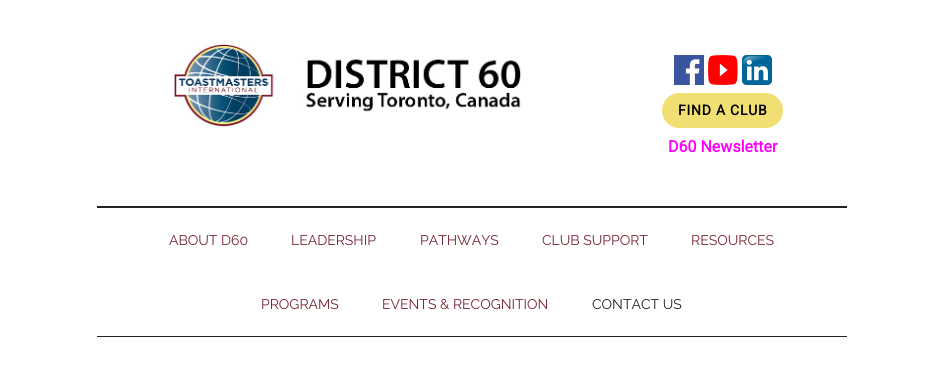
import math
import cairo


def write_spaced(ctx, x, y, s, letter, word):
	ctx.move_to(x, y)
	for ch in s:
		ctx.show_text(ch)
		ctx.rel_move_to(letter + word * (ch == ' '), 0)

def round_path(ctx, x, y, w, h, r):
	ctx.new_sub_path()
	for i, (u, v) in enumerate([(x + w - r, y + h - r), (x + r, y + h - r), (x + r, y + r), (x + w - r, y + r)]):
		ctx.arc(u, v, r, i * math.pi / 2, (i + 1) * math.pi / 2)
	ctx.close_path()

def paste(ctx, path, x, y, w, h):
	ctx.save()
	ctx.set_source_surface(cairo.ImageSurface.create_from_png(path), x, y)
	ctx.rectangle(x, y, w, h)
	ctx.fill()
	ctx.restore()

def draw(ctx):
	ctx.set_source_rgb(1, 1, 1)
	ctx.paint()
	ctx.set_source_rgb(0.133, 0.133, 0.133)
	ctx.rectangle(97, 206, 750, 2)
	ctx.fill()
	paste(ctx, 'media/1.png', 174, 44, 348, 83)
	paste(ctx, 'media/2.png', 674, 55, 30, 30)
	paste(ctx, 'media/3.png', 708, 55, 30, 30)
	paste(ctx, 'media/4.png', 742, 55, 30, 30)
	ctx.set_source_rgb(0.949, 0.875, 0.455)
	round_path(ctx, 662, 93, 121, 35, 17.5)
	ctx.fill()
	ctx.select_font_face('Roboto', cairo.FONT_SLANT_NORMAL, cairo.FONT_WEIGHT_BOLD)
	ctx.set_font_size(14)
	ctx.set_source_rgb(0, 0, 0)
	write_spaced(ctx, 678, 115, 'FIND A CLUB', 0.75, 0)
	ctx.set_font_size(16)
	ctx.set_source_rgb(1, 0, 1)
	ctx.move_to(668, 152)
	ctx.show_text('D60 Newsletter')
	ctx.set_source_rgb(0.133, 0.133, 0.133)
	ctx.rectangle(97, 336, 750, 1)
	ctx.fill()
	ctx.select_font_face('Raleway')
	ctx.set_font_size(14)
	ctx.set_source_rgb(0.467, 0.141, 0.196)
	for x, y, s in [
		(169, 245, 'ABOUT D60'),
		(291, 245, 'LEADERSHIP'),
		(420, 245, 'PATHWAYS'),
		(542, 245, 'CLUB SUPPORT'),
		(691, 245, 'RESOURCES'),
		(261, 309, 'PROGRAMS'),
		(382, 309, 'EVENTS & RECOGNITION'),
	]:
		ctx.move_to(x, y)
		ctx.show_text(s)
	ctx.set_source_rgb(0.133, 0.133, 0.133)
	ctx.move_to(592, 309)
	ctx.show_text('CONTACT US')


surface = cairo.ImageSurface(cairo.FORMAT_RGB24, 943, 381)
ctx = cairo.Context(surface)
options = cairo.FontOptions()
options.set_hint_metrics(cairo.HINT_METRICS_OFF)
options.set_hint_style(cairo.HINT_STYLE_NONE)
ctx.set_font_options(options)
ctx.set_miter_limit(4)
draw(ctx)
surface.write_to_png('image.png')
